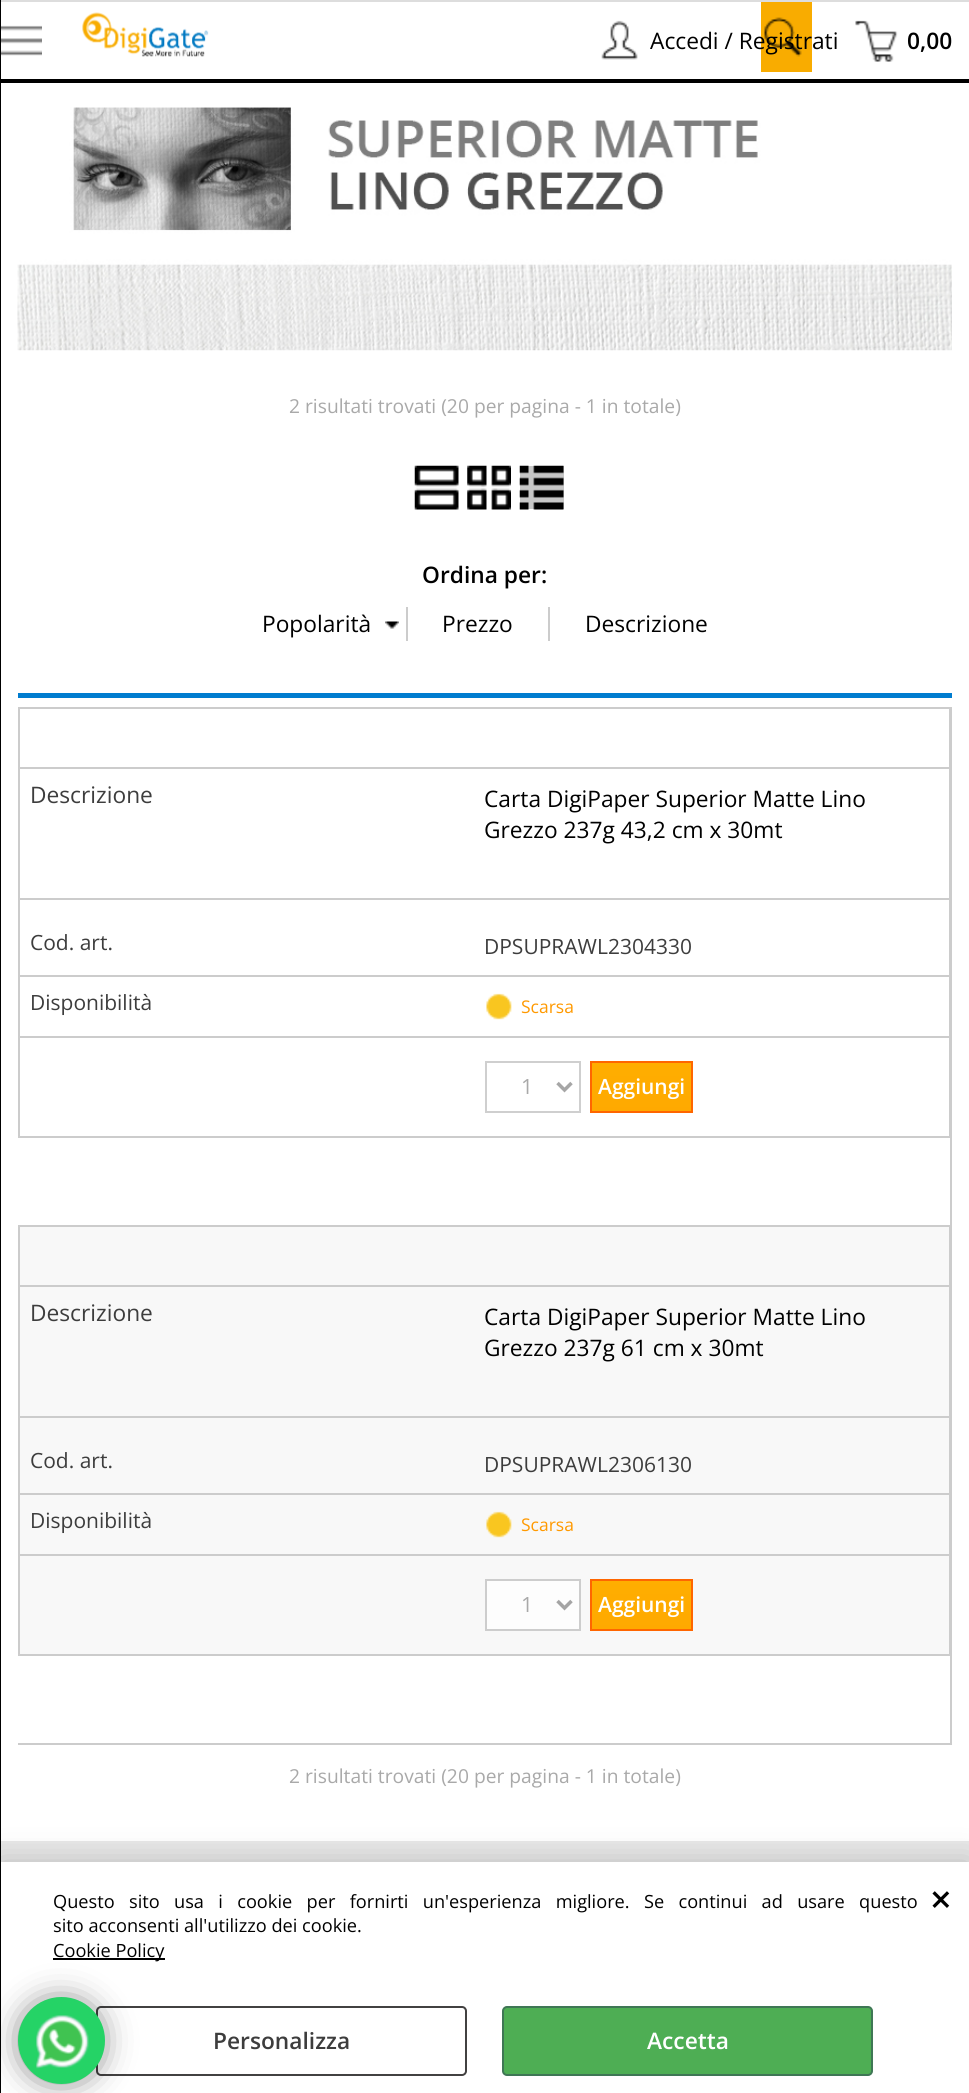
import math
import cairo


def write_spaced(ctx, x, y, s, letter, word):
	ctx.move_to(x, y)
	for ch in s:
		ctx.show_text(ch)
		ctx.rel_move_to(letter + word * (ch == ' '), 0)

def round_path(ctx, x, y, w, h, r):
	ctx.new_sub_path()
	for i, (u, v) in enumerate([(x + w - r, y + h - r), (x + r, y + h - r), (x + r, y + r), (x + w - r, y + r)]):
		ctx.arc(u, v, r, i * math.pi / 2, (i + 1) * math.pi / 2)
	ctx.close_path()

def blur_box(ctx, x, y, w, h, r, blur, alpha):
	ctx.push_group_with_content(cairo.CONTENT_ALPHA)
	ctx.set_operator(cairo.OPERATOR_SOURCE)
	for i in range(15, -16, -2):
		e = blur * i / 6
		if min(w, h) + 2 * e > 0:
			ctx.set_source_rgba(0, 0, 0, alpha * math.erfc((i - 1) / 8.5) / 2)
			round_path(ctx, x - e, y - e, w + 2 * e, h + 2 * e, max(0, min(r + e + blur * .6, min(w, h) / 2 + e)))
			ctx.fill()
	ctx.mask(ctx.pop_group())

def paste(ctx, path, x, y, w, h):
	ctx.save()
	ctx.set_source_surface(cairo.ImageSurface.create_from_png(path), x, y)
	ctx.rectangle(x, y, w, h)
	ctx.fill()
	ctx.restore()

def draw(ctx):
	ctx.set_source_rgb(1, 1, 1)
	ctx.paint()
	ctx.set_source_rgb(0.867, 0.867, 0.867)
	ctx.rectangle(0, 0, 969, 2)
	ctx.fill()
	ctx.set_source_rgb(0, 0, 0)
	ctx.rectangle(0, 79, 969, 4)
	ctx.fill()
	ctx.set_source_rgb(0.91, 0.91, 0.91)
	ctx.rectangle(1, 1841, 968, 21)
	ctx.fill()
	ctx.set_source_rgb(0, 0, 0)
	blur_box(ctx, 0, 1862, 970, 231, 0, 16, 0.2)
	ctx.set_source_rgb(1, 1, 1)
	ctx.rectangle(1, 1862, 968, 231)
	ctx.fill()
	ctx.set_source_rgb(0, 0, 0)
	ctx.rectangle(53, 1958, 112, 2)
	ctx.fill()
	round_path(ctx, 97, 2007, 369, 68, 4)
	ctx.set_source_rgb(0.259, 0.255, 0.255)
	ctx.stroke()
	ctx.set_source_rgb(0, 0, 0)
	blur_box(ctx, 26, 2006, 70, 70, 35, 17.5, 0.7)
	ctx.set_source_rgb(0, 0, 0)
	ctx.rectangle(0, 0, 1, 2093)
	ctx.fill()
	paste(ctx, 'media/1.png', 1, 25, 41, 31)
	paste(ctx, 'media/2.png', 82, 12, 127, 45)
	ctx.set_source_rgb(0.973, 0.675, 0)
	ctx.rectangle(761, 2, 51, 70)
	ctx.fill()
	paste(ctx, 'media/3.png', 764, 17, 38, 40)
	paste(ctx, 'media/4.png', 601, 20, 37, 40)
	ctx.select_font_face('Open Sans')
	ctx.set_font_size(22.75)
	ctx.set_source_rgb(0, 0, 0)
	ctx.move_to(650, 49)
	ctx.show_text('Accedi / Registrati')
	paste(ctx, 'media/5.png', 855, 20, 43, 42)
	ctx.select_font_face('Open Sans SemiBold')
	ctx.move_to(907, 49)
	ctx.show_text('0,00')
	paste(ctx, 'media/6.png', 17, 107, 935, 244)
	ctx.select_font_face('Open Sans')
	ctx.set_font_size(19.25)
	ctx.set_source_rgb(0.663, 0.663, 0.663)
	ctx.move_to(289, 413)
	ctx.show_text('2 risultati trovati (20 per pagina - 1 in totale)')
	paste(ctx, 'media/7.png', 414, 465, 45, 45)
	paste(ctx, 'media/8.png', 467, 465, 44, 45)
	ctx.set_source_rgb(0.776, 0.776, 0.776)
	ctx.rectangle(520, 466, 44, 43)
	ctx.fill()
	paste(ctx, 'media/9.png', 519, 465, 45, 45)
	ctx.set_source_rgb(0, 0.486, 0.812)
	ctx.rectangle(18, 693, 934, 5)
	ctx.fill()
	ctx.select_font_face('Open Sans SemiBold')
	ctx.set_font_size(22.75)
	ctx.set_source_rgb(0, 0, 0)
	ctx.move_to(422, 583)
	ctx.show_text('Ordina per:')
	paste(ctx, 'media/10.png', 385, 621, 14, 8)
	ctx.set_source_rgb(0.8, 0.8, 0.8)
	ctx.rectangle(406, 607, 2, 34)
	ctx.fill()
	ctx.select_font_face('Open Sans')
	ctx.set_source_rgb(0, 0, 0)
	ctx.move_to(262, 632)
	ctx.show_text('Popolarità')
	ctx.set_source_rgb(0.8, 0.8, 0.8)
	ctx.rectangle(548, 607, 2, 34)
	ctx.fill()
	ctx.set_source_rgb(0, 0, 0)
	ctx.move_to(442, 632)
	ctx.show_text('Prezzo')
	ctx.move_to(585, 632)
	ctx.show_text('Descrizione')
	ctx.set_source_rgb(0.8, 0.8, 0.8)
	ctx.rectangle(950, 707, 2, 1038)
	ctx.rectangle(18, 1743, 934, 2)
	ctx.rectangle(18, 707, 932, 2)
	ctx.rectangle(949, 707, 1, 431)
	ctx.rectangle(18, 707, 2, 431)
	ctx.rectangle(19, 767, 930, 2)
	ctx.rectangle(19, 898, 930, 2)
	ctx.fill()
	ctx.set_source_rgb(0.239, 0.239, 0.239)
	ctx.move_to(30, 803)
	ctx.show_text('Descrizione')
	ctx.set_source_rgb(0, 0, 0)
	ctx.move_to(484, 807)
	ctx.show_text('Carta DigiPaper Superior Matte Lino')
	ctx.move_to(484, 838)
	ctx.show_text('Grezzo 237g 43,2 cm x 30mt')
	ctx.set_source_rgb(0.8, 0.8, 0.8)
	ctx.rectangle(19, 975, 930, 2)
	ctx.fill()
	ctx.set_font_size(21)
	ctx.set_source_rgb(0.239, 0.239, 0.239)
	ctx.move_to(30, 950)
	ctx.show_text('Cod. art.')
	ctx.move_to(484, 954)
	ctx.show_text('DPSUPRAWL2304330')
	ctx.set_source_rgb(0.8, 0.8, 0.8)
	ctx.rectangle(19, 1036, 930, 2)
	ctx.fill()
	ctx.set_source_rgb(0.239, 0.239, 0.239)
	ctx.move_to(30, 1010)
	ctx.show_text('Disponibilità')
	paste(ctx, 'media/11.png', 486, 993, 26, 27)
	ctx.set_font_size(17.5)
	ctx.set_source_rgb(1, 0.6, 0)
	ctx.move_to(521, 1013)
	ctx.show_text('Scarsa')
	ctx.set_source_rgb(0.8, 0.8, 0.8)
	ctx.rectangle(19, 1136, 930, 2)
	ctx.fill()
	ctx.rectangle(486, 1062, 94, 50)
	ctx.set_source_rgb(0.812, 0.812, 0.812)
	ctx.stroke()
	ctx.new_path()
	ctx.move_to(557.5, 1083)
	ctx.line_to(564.5, 1090)
	ctx.line_to(571.5, 1083)
	ctx.set_source_rgb(0.651, 0.651, 0.651)
	ctx.set_line_width(3.5)
	ctx.stroke()
	ctx.set_font_size(21)
	ctx.set_source_rgb(0.663, 0.663, 0.663)
	ctx.move_to(521, 1094)
	ctx.show_text('1')
	gradient = cairo.LinearGradient(641, 1062, 641, 1111)
	gradient.add_color_stop_rgba(0, 1, 0.682, 0, 1)
	gradient.add_color_stop_rgba(1, 1, 0.663, 0, 1)
	ctx.set_source(gradient)
	ctx.rectangle(592, 1063, 99, 48)
	ctx.fill()
	ctx.rectangle(591, 1062, 101, 50)
	ctx.set_source_rgb(1, 0.4, 0)
	ctx.set_line_width(2)
	ctx.stroke()
	ctx.select_font_face('Open Sans SemiBold')
	ctx.set_source_rgb(1, 1, 1)
	ctx.move_to(598, 1094)
	ctx.show_text('Aggiungi')
	ctx.set_source_rgb(0.969, 0.969, 0.969)
	ctx.rectangle(20, 1227, 929, 427)
	ctx.fill()
	ctx.set_source_rgb(0.8, 0.8, 0.8)
	ctx.rectangle(18, 1225, 932, 2)
	ctx.rectangle(949, 1225, 1, 431)
	ctx.rectangle(18, 1225, 2, 431)
	ctx.rectangle(19, 1285, 930, 2)
	ctx.rectangle(19, 1416, 930, 2)
	ctx.fill()
	ctx.select_font_face('Open Sans')
	ctx.set_font_size(22.75)
	ctx.set_source_rgb(0.239, 0.239, 0.239)
	ctx.move_to(30, 1321)
	ctx.show_text('Descrizione')
	ctx.set_source_rgb(0, 0, 0)
	ctx.move_to(484, 1325)
	ctx.show_text('Carta DigiPaper Superior Matte Lino')
	ctx.move_to(484, 1356)
	ctx.show_text('Grezzo 237g 61 cm x 30mt')
	ctx.set_source_rgb(0.8, 0.8, 0.8)
	ctx.rectangle(19, 1493, 930, 2)
	ctx.fill()
	ctx.set_font_size(21)
	ctx.set_source_rgb(0.239, 0.239, 0.239)
	ctx.move_to(30, 1468)
	ctx.show_text('Cod. art.')
	ctx.move_to(484, 1472)
	ctx.show_text('DPSUPRAWL2306130')
	ctx.set_source_rgb(0.8, 0.8, 0.8)
	ctx.rectangle(19, 1554, 930, 2)
	ctx.fill()
	ctx.set_source_rgb(0.239, 0.239, 0.239)
	ctx.move_to(30, 1528)
	ctx.show_text('Disponibilità')
	paste(ctx, 'media/12.png', 486, 1511, 26, 27)
	ctx.set_font_size(17.5)
	ctx.set_source_rgb(1, 0.6, 0)
	ctx.move_to(521, 1531)
	ctx.show_text('Scarsa')
	ctx.set_source_rgb(0.8, 0.8, 0.8)
	ctx.rectangle(19, 1654, 930, 2)
	ctx.fill()
	ctx.set_source_rgb(0.992, 0.992, 0.992)
	ctx.rectangle(486, 1580, 94, 50)
	ctx.fill_preserve()
	ctx.set_source_rgb(0.804, 0.804, 0.804)
	ctx.stroke()
	ctx.new_path()
	ctx.move_to(557.5, 1601)
	ctx.line_to(564.5, 1608)
	ctx.line_to(571.5, 1601)
	ctx.set_source_rgb(0.643, 0.643, 0.643)
	ctx.set_line_width(3.5)
	ctx.stroke()
	ctx.set_font_size(21)
	ctx.set_source_rgb(0.663, 0.663, 0.663)
	ctx.move_to(521, 1612)
	ctx.show_text('1')
	gradient = cairo.LinearGradient(641, 1580, 641, 1629)
	gradient.add_color_stop_rgba(0, 1, 0.682, 0, 1)
	gradient.add_color_stop_rgba(1, 1, 0.663, 0, 1)
	ctx.set_source(gradient)
	ctx.rectangle(592, 1581, 99, 48)
	ctx.fill()
	ctx.rectangle(591, 1580, 101, 50)
	ctx.set_source_rgb(1, 0.4, 0)
	ctx.set_line_width(2)
	ctx.stroke()
	ctx.select_font_face('Open Sans SemiBold')
	ctx.set_source_rgb(1, 1, 1)
	ctx.move_to(598, 1612)
	ctx.show_text('Aggiungi')
	ctx.select_font_face('Open Sans')
	ctx.set_font_size(19.25)
	ctx.set_source_rgb(0.663, 0.663, 0.663)
	ctx.move_to(289, 1783)
	ctx.show_text('2 risultati trovati (20 per pagina - 1 in totale)')
	ctx.set_font_size(18.2)
	ctx.set_source_rgb(0, 0, 0)
	write_spaced(ctx, 53, 1908, 'Questo sito usa i cookie per fornirti un\'esperienza migliore. Se continui ad usare questo', 0, 9.6)
	ctx.move_to(53, 1932)
	ctx.show_text('sito acconsenti all\'utilizzo dei cookie.')
	ctx.move_to(53, 1957)
	ctx.show_text('Cookie Policy')
	ctx.select_font_face('Open Sans SemiBold')
	ctx.set_font_size(38)
	ctx.move_to(930, 1913)
	ctx.show_text('×')
	ctx.set_font_size(22.75)
	ctx.set_source_rgb(0.239, 0.239, 0.239)
	ctx.move_to(213, 2049)
	ctx.show_text('Personalizza')
	ctx.set_source_rgb(0.306, 0.682, 0.329)
	round_path(ctx, 503, 2007, 369, 68, 4)
	ctx.fill_preserve()
	ctx.set_source_rgb(0.247, 0.467, 0.333)
	ctx.stroke()
	ctx.set_source_rgb(1, 1, 1)
	ctx.move_to(647, 2049)
	ctx.show_text('Accetta')
	ctx.set_source_rgb(0.145, 0.827, 0.4)
	ctx.new_path()
	ctx.arc(61.5, 2040.5, 43.5, 0, 2 * math.pi)
	ctx.fill()
	paste(ctx, 'media/13.png', 36, 2015, 53, 54)


surface = cairo.ImageSurface(cairo.FORMAT_RGB24, 969, 2093)
ctx = cairo.Context(surface)
options = cairo.FontOptions()
options.set_hint_metrics(cairo.HINT_METRICS_OFF)
options.set_hint_style(cairo.HINT_STYLE_NONE)
ctx.set_font_options(options)
ctx.set_miter_limit(4)
draw(ctx)
surface.write_to_png('image.png')
